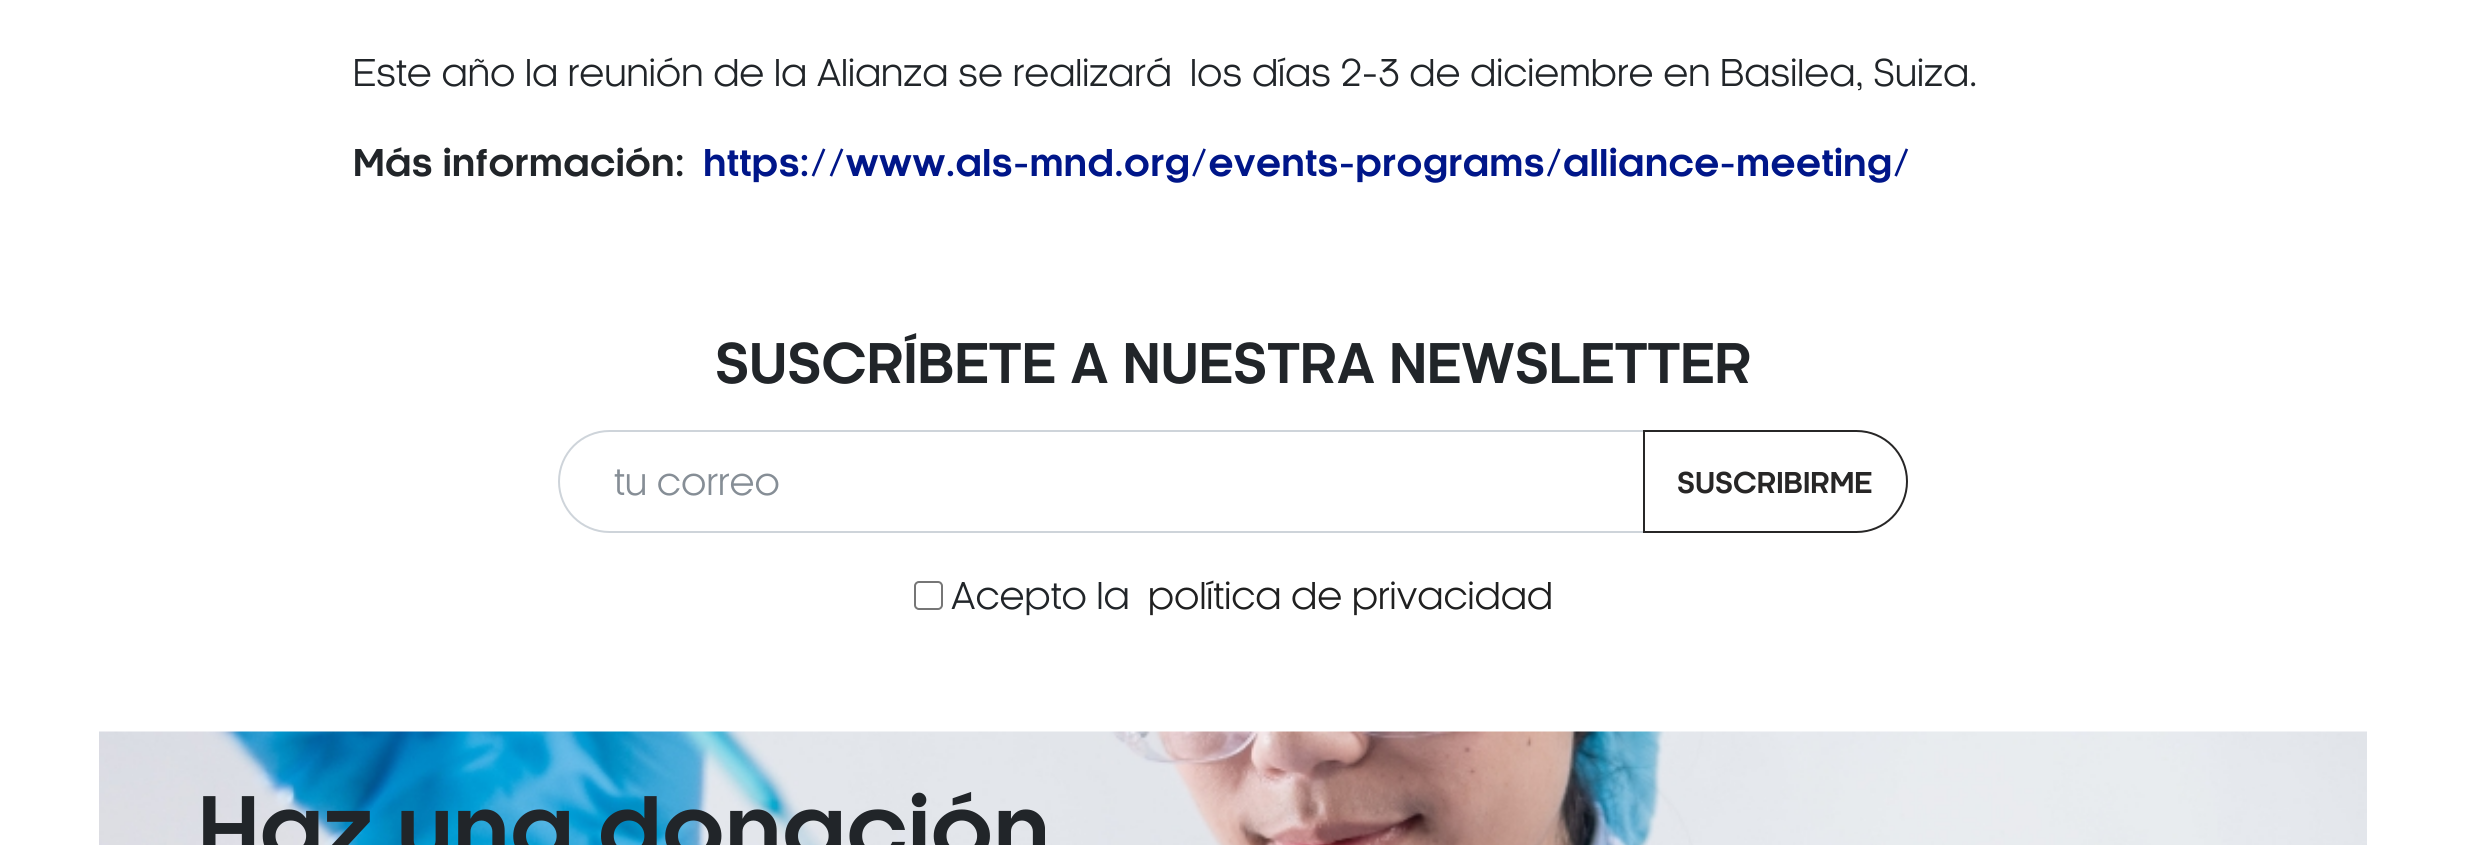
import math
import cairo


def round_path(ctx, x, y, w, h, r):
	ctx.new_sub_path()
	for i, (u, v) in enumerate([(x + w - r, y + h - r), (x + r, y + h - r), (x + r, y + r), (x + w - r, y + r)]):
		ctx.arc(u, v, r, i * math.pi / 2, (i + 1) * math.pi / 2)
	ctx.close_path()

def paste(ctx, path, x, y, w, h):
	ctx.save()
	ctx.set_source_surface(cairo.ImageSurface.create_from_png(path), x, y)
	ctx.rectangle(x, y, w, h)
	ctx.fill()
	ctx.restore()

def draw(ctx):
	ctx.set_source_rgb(1, 1, 1)
	ctx.paint()
	ctx.select_font_face('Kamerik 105')
	ctx.set_font_size(36)
	ctx.set_source_rgb(0.129, 0.145, 0.161)
	ctx.move_to(353, 86)
	ctx.show_text('Este año la reunión de la Alianza se realizará')
	ctx.move_to(1190, 86)
	ctx.show_text('los días 2-3 de diciembre en Basilea, Suiza.')
	ctx.select_font_face('Kamerik 105', cairo.FONT_SLANT_NORMAL, cairo.FONT_WEIGHT_BOLD)
	ctx.move_to(353, 176)
	ctx.show_text('Más información:')
	ctx.set_source_rgb(0, 0.086, 0.537)
	ctx.move_to(703, 176)
	ctx.show_text('https://www.als-mnd.org/events-programs/alliance-meeting/')
	ctx.set_font_size(53.25)
	ctx.set_source_rgb(0.129, 0.145, 0.161)
	ctx.move_to(715, 383)
	ctx.show_text('SUSCRÍBETE A NUESTRA NEWSLETTER')
	ctx.new_path()
	ctx.move_to(609.5, 431)
	ctx.line_to(1644, 431)
	ctx.line_to(1644, 532)
	ctx.line_to(609.5, 532)
	ctx.curve_to(581.5, 532, 559, 509.5, 559, 481.5)
	ctx.curve_to(559, 453.5, 581.5, 431, 609.5, 431)
	ctx.close_path()
	ctx.set_source_rgb(0.808, 0.831, 0.855)
	ctx.stroke()
	ctx.select_font_face('Kamerik 105')
	ctx.set_font_size(36)
	ctx.set_source_rgb(0.525, 0.557, 0.588)
	ctx.move_to(614, 495)
	ctx.show_text('tu correo')
	ctx.set_source_rgb(1, 1, 1)
	ctx.new_path()
	ctx.move_to(1644, 431)
	ctx.line_to(1856.5, 431)
	ctx.curve_to(1884.5, 431, 1907, 453.5, 1907, 481.5)
	ctx.curve_to(1907, 509.5, 1884.5, 532, 1856.5, 532)
	ctx.line_to(1644, 532)
	ctx.close_path()
	ctx.fill_preserve()
	ctx.set_source_rgb(0.153, 0.149, 0.149)
	ctx.stroke()
	ctx.select_font_face('Kamerik 105', cairo.FONT_SLANT_NORMAL, cairo.FONT_WEIGHT_BOLD)
	ctx.set_font_size(28)
	ctx.move_to(1677, 493)
	ctx.show_text('SUSCRIBIRME')
	round_path(ctx, 915, 582, 27, 27, 4)
	ctx.set_source_rgb(0.463, 0.463, 0.463)
	ctx.stroke()
	ctx.select_font_face('Kamerik 105')
	ctx.set_font_size(36)
	ctx.set_source_rgb(0.129, 0.145, 0.161)
	ctx.move_to(951, 609)
	ctx.show_text('Acepto la')
	ctx.set_source_rgb(0.125, 0.125, 0.125)
	ctx.move_to(1148, 609)
	ctx.show_text('política de privacidad')
	paste(ctx, 'media/1.png', 99, 731, 2268, 114)
	ctx.select_font_face('Kamerik 105', cairo.FONT_SLANT_NORMAL, cairo.FONT_WEIGHT_BOLD)
	ctx.set_font_size(86.5)
	ctx.set_source_rgb(0.129, 0.145, 0.161)
	ctx.move_to(198, 861)
	ctx.show_text('Haz una donación')


surface = cairo.ImageSurface(cairo.FORMAT_RGB24, 2466, 845)
ctx = cairo.Context(surface)
options = cairo.FontOptions()
options.set_hint_metrics(cairo.HINT_METRICS_OFF)
options.set_hint_style(cairo.HINT_STYLE_NONE)
ctx.set_font_options(options)
ctx.set_miter_limit(4)
draw(ctx)
surface.write_to_png('image.png')
